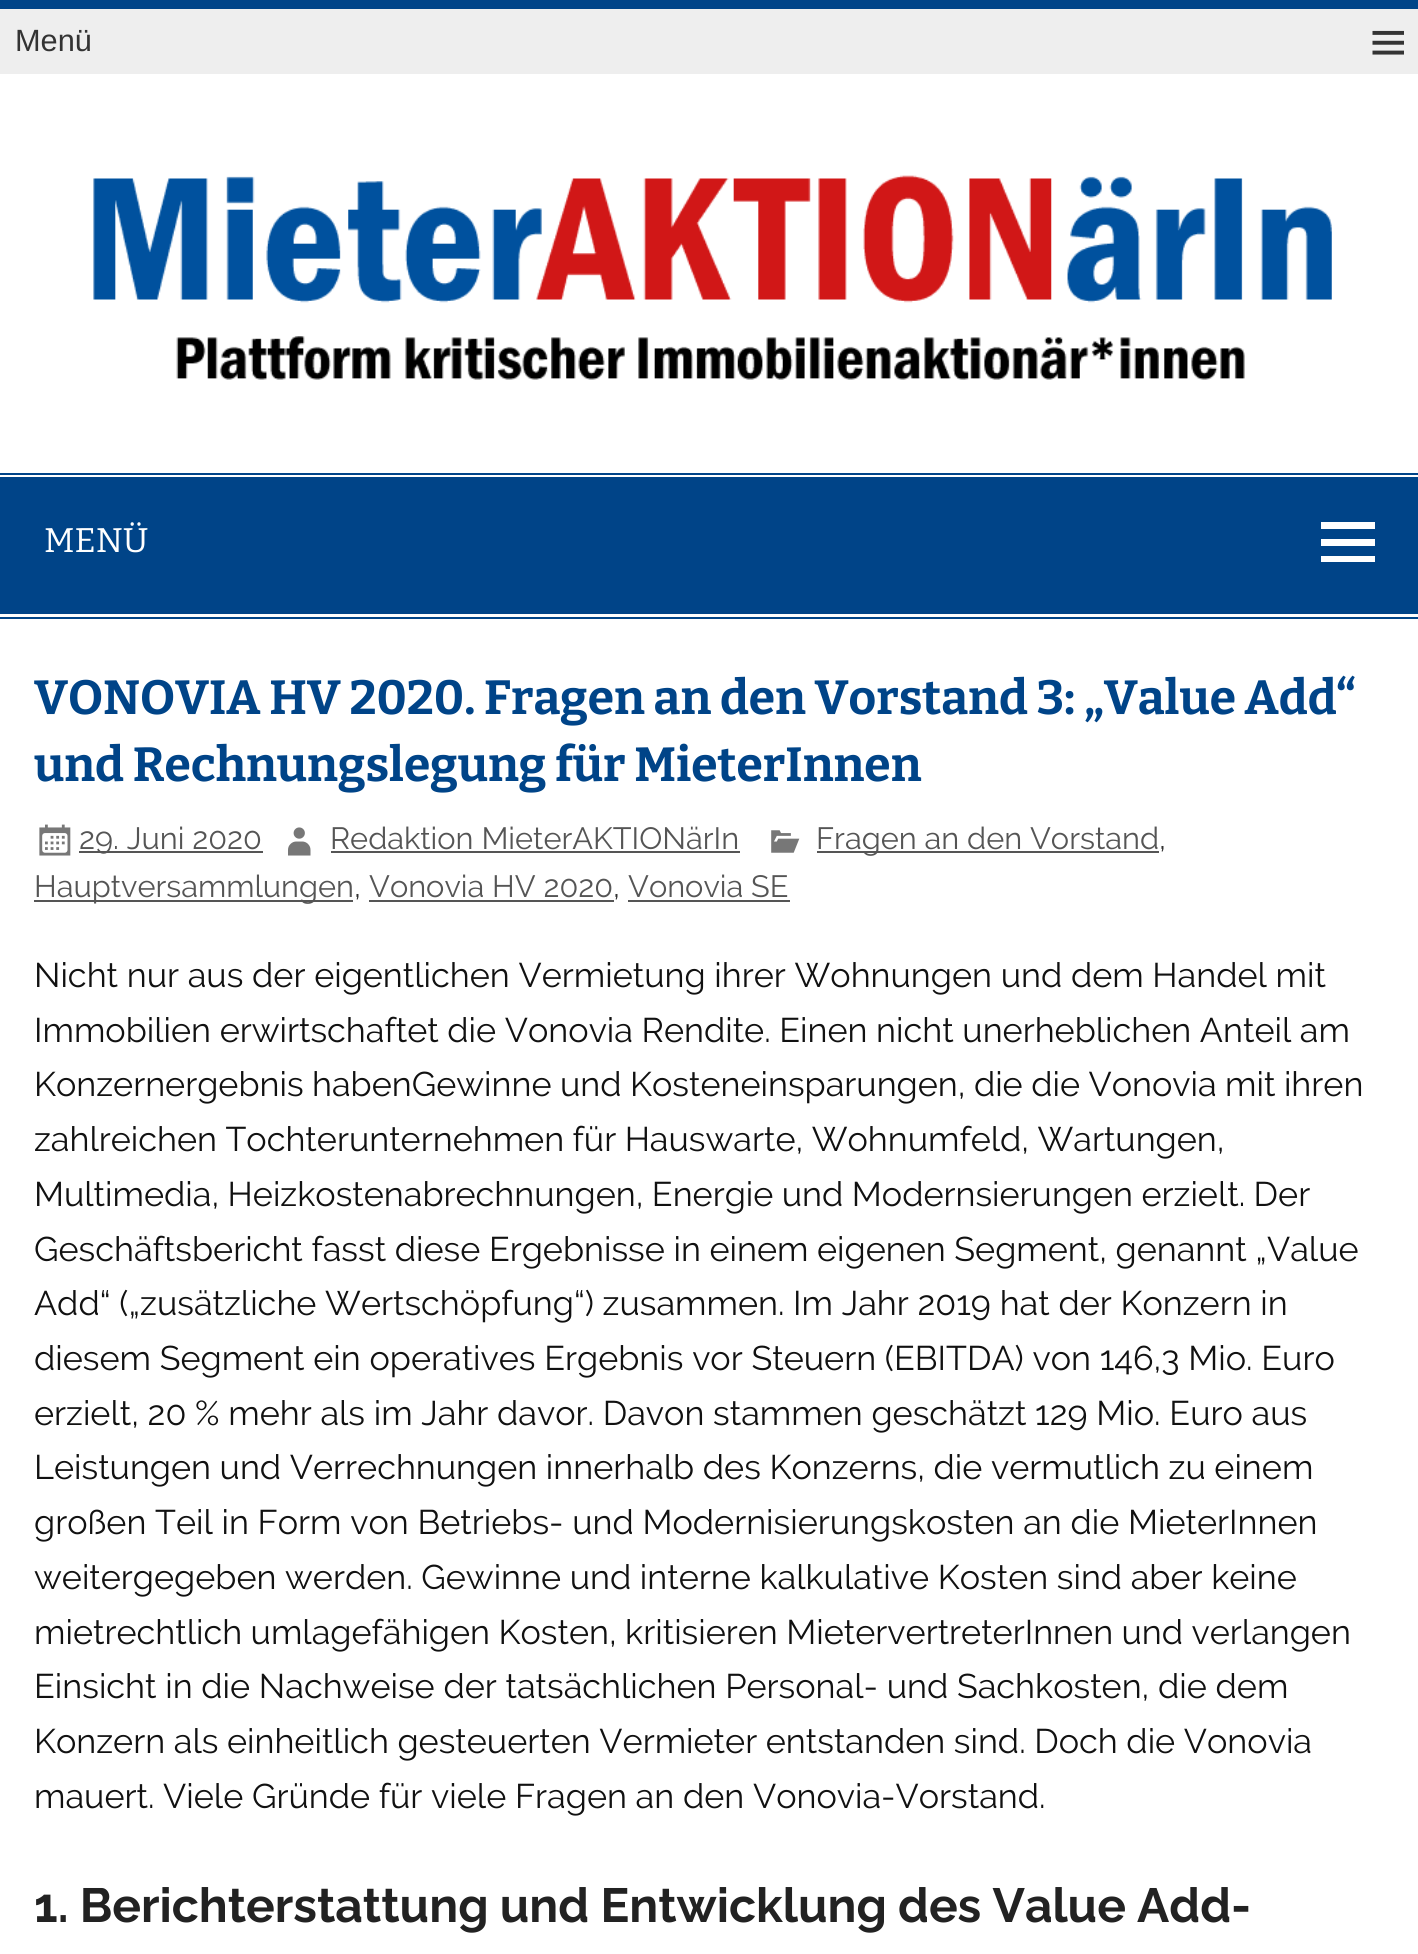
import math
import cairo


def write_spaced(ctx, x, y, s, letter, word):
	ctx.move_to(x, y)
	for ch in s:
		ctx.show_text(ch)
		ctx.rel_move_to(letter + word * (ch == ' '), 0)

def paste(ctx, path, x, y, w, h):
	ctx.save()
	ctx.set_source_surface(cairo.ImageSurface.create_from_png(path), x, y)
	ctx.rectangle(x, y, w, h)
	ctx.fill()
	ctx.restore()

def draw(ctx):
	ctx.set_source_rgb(1, 1, 1)
	ctx.paint()
	ctx.set_source_rgb(0, 0.267, 0.533)
	ctx.rectangle(0, 0, 1418, 9)
	ctx.fill()
	ctx.set_source_rgb(0.933, 0.933, 0.933)
	ctx.rectangle(0, 9, 1418, 65)
	ctx.fill()
	ctx.select_font_face('Liberation Sans')
	ctx.set_font_size(30.75)
	ctx.set_source_rgb(0.2, 0.2, 0.2)
	ctx.move_to(15, 51)
	ctx.show_text('Menü')
	paste(ctx, 'media/1.png', 1372, 30, 32, 25)
	paste(ctx, 'media/2.png', 93, 175, 1239, 205)
	ctx.set_source_rgb(0, 0.267, 0.533)
	ctx.rectangle(0, 473, 1418, 2)
	ctx.rectangle(0, 617, 1418, 2)
	ctx.rectangle(0, 477, 1418, 137)
	ctx.fill()
	ctx.select_font_face('Bitter')
	ctx.set_font_size(34.2)
	ctx.set_source_rgb(1, 1, 1)
	ctx.move_to(44, 552)
	ctx.show_text('MENÜ')
	ctx.new_path()
	ctx.move_to(1321, 562)
	ctx.line_to(1321, 556)
	ctx.line_to(1375, 556)
	ctx.line_to(1375, 562)
	ctx.close_path()
	ctx.move_to(1321, 522)
	ctx.line_to(1375, 522)
	ctx.line_to(1375, 529)
	ctx.line_to(1321, 529)
	ctx.close_path()
	ctx.move_to(1321, 546)
	ctx.line_to(1321, 539)
	ctx.line_to(1375, 539)
	ctx.line_to(1375, 546)
	ctx.close_path()
	ctx.fill()
	ctx.select_font_face('Bitter', cairo.FONT_SLANT_NORMAL, cairo.FONT_WEIGHT_BOLD)
	ctx.set_font_size(47.9)
	ctx.set_source_rgb(0, 0.267, 0.533)
	ctx.move_to(34, 714)
	ctx.show_text('VONOVIA HV 2020. Fragen an den Vorstand 3: „Value Add“')
	ctx.move_to(34, 781)
	ctx.show_text('und Rechnungslegung für MieterInnen')
	paste(ctx, 'media/3.png', 771, 830, 29, 23)
	ctx.set_source_rgb(0.333, 0.333, 0.333)
	ctx.rectangle(817, 851, 342, 2)
	ctx.fill()
	ctx.select_font_face('Raleway')
	ctx.set_font_size(30.75)
	ctx.move_to(816, 849)
	ctx.show_text('Fragen an den Vorstand')
	ctx.set_source_rgb(0.2, 0.2, 0.2)
	ctx.move_to(1159, 849)
	ctx.show_text(',')
	ctx.set_source_rgb(0.333, 0.333, 0.333)
	ctx.rectangle(34, 900, 319, 2)
	ctx.fill()
	ctx.move_to(34, 897)
	ctx.show_text('Hauptversammlungen')
	ctx.set_source_rgb(0.2, 0.2, 0.2)
	ctx.move_to(354, 897)
	ctx.show_text(',')
	ctx.set_source_rgb(0.333, 0.333, 0.333)
	ctx.move_to(369, 897)
	ctx.show_text('Vonovia HV 2020')
	ctx.rectangle(369, 900, 245, 2)
	ctx.fill()
	ctx.set_source_rgb(0.2, 0.2, 0.2)
	ctx.move_to(613, 897)
	ctx.show_text(',')
	ctx.set_source_rgb(0.333, 0.333, 0.333)
	ctx.move_to(628, 897)
	ctx.show_text('Vonovia SE')
	ctx.rectangle(628, 900, 162, 2)
	ctx.fill()
	paste(ctx, 'media/4.png', 39, 824, 32, 32)
	ctx.rectangle(79, 851, 184, 2)
	ctx.fill()
	ctx.move_to(79, 849)
	ctx.show_text('29. Juni 2020')
	paste(ctx, 'media/5.png', 288, 827, 23, 29)
	ctx.move_to(330, 849)
	ctx.show_text('Redaktion MieterAKTIONärIn')
	ctx.rectangle(331, 851, 409, 2)
	ctx.fill()
	ctx.set_font_size(34.2)
	ctx.set_source_rgb(0.067, 0.067, 0.067)
	ctx.move_to(34, 987)
	ctx.show_text('Nicht nur aus der eigentlichen Vermietung ihrer Wohnungen und dem Handel mit')
	write_spaced(ctx, 34, 1042, 'Immobilien erwirtschaftet die Vonovia Rendite. Einen nicht unerheblichen Anteil am', 0, -0.1)
	for x, y, s in [
		(34, 1096, 'Konzernergebnis habenGewinne und Kosteneinsparungen, die die Vonovia mit ihren'),
		(34, 1151, 'zahlreichen Tochterunternehmen für Hauswarte, Wohnumfeld, Wartungen,'),
		(34, 1206, 'Multimedia, Heizkostenabrechnungen, Energie und Modernsierungen erzielt. Der'),
	]:
		write_spaced(ctx, x, y, s, 0, -0.25)
	write_spaced(ctx, 34, 1261, 'Geschäftsbericht fasst diese Ergebnisse in einem eigenen Segment, genannt „Value', 0, -0.1)
	for x, y, s in [
		(34, 1315, 'Add“ („zusätzliche Wertschöpfung“) zusammen. Im Jahr 2019 hat der Konzern in'),
		(34, 1370, 'diesem Segment ein operatives Ergebnis vor Steuern (EBITDA) von 146,3 Mio. Euro'),
		(34, 1425, 'erzielt, 20 % mehr als im Jahr davor. Davon stammen geschätzt 129 Mio. Euro aus'),
	]:
		ctx.move_to(x, y)
		ctx.show_text(s)
	write_spaced(ctx, 34, 1479, 'Leistungen und Verrechnungen innerhalb des Konzerns, die vermutlich zu einem', 0, -0.1)
	ctx.move_to(34, 1534)
	ctx.show_text('großen Teil in Form von Betriebs- und Modernisierungskosten an die MieterInnen')
	write_spaced(ctx, 34, 1589, 'weitergegeben werden. Gewinne und interne kalkulative Kosten sind aber keine', 0, -0.1)
	write_spaced(ctx, 34, 1644, 'mietrechtlich umlagefähigen Kosten, kritisieren MietervertreterInnen und verlangen', 0, -0.25)
	ctx.move_to(34, 1698)
	ctx.show_text('Einsicht in die Nachweise der tatsächlichen Personal- und Sachkosten, die dem')
	write_spaced(ctx, 34, 1753, 'Konzern als einheitlich gesteuerten Vermieter entstanden sind. Doch die Vonovia', 0, -0.1)
	ctx.move_to(34, 1808)
	ctx.show_text('mauert. Viele Gründe für viele Fragen an den Vonovia-Vorstand.')
	ctx.select_font_face('Raleway', cairo.FONT_SLANT_NORMAL, cairo.FONT_WEIGHT_BOLD)
	ctx.set_font_size(47.9)
	ctx.set_source_rgb(0.133, 0.133, 0.133)
	write_spaced(ctx, 34, 1922, '1. Berichterstattung und Entwicklung des Value Add-', 0, -0.25)


surface = cairo.ImageSurface(cairo.FORMAT_RGB24, 1418, 1954)
ctx = cairo.Context(surface)
options = cairo.FontOptions()
options.set_hint_metrics(cairo.HINT_METRICS_OFF)
options.set_hint_style(cairo.HINT_STYLE_NONE)
ctx.set_font_options(options)
ctx.set_miter_limit(4)
draw(ctx)
surface.write_to_png('image.png')
